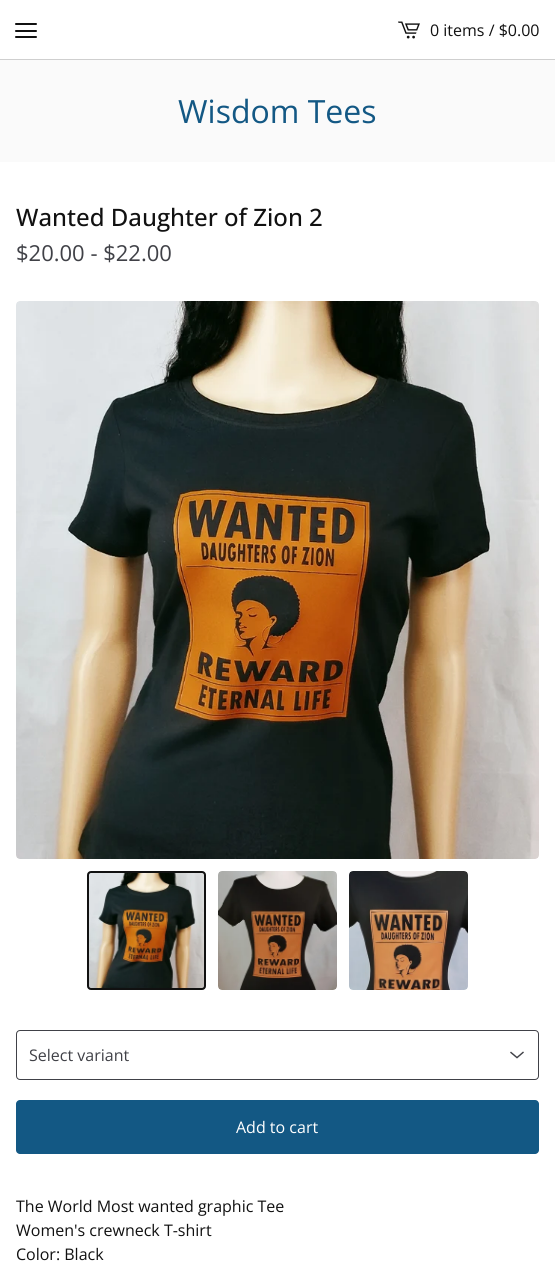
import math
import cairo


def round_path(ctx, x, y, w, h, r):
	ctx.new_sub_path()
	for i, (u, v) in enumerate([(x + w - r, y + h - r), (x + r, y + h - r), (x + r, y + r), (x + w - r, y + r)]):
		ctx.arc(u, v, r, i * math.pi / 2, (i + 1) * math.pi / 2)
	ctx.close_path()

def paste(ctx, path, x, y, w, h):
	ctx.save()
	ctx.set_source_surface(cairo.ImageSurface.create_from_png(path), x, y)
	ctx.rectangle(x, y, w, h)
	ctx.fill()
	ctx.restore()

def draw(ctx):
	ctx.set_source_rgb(1, 1, 1)
	ctx.paint()
	ctx.set_source_rgb(0.812, 0.812, 0.812)
	ctx.rectangle(0, 59, 555, 1)
	ctx.fill()
	ctx.set_source_rgb(0.067, 0.067, 0.067)
	round_path(ctx, 15, 23, 22, 2, 1)
	ctx.fill()
	round_path(ctx, 15, 30, 22, 2, 1)
	ctx.fill()
	round_path(ctx, 15, 36, 22, 2, 1)
	ctx.fill()
	paste(ctx, 'media/1.png', 398, 21, 22, 18)
	ctx.select_font_face('Open Sans')
	ctx.set_font_size(16)
	ctx.move_to(430, 36)
	ctx.show_text('0 items / $0.00')
	ctx.set_source_rgb(0.98, 0.98, 0.98)
	ctx.rectangle(0, 60, 555, 102)
	ctx.fill()
	ctx.set_font_size(32)
	ctx.set_source_rgb(0.075, 0.345, 0.518)
	ctx.move_to(178, 123)
	ctx.show_text('Wisdom Tees')
	ctx.select_font_face('Open Sans Medium')
	ctx.set_font_size(24)
	ctx.set_source_rgb(0.067, 0.067, 0.067)
	ctx.move_to(16, 226)
	ctx.show_text('Wanted Daughter of Zion 2')
	ctx.select_font_face('Open Sans')
	ctx.set_font_size(22)
	ctx.set_source_rgb(0.251, 0.255, 0.278)
	ctx.move_to(16, 261)
	ctx.show_text('$20.00 - $22.00')
	paste(ctx, 'media/2.png', 16, 301, 523, 558)
	paste(ctx, 'media/3.png', 87, 871, 119, 119)
	round_path(ctx, 88, 872, 117, 117, 3)
	ctx.set_source_rgb(0.067, 0.067, 0.067)
	ctx.stroke()
	paste(ctx, 'media/4.png', 218, 871, 119, 119)
	paste(ctx, 'media/5.png', 349, 871, 119, 119)
	round_path(ctx, 16.5, 1030.5, 522, 49, 3.5)
	ctx.set_source_rgb(0.251, 0.255, 0.278)
	ctx.set_line_width(1)
	ctx.stroke()
	ctx.set_font_size(16)
	ctx.move_to(29, 1061)
	ctx.show_text('Select variant')
	paste(ctx, 'media/6.png', 510, 1051, 14, 8)
	ctx.set_source_rgb(0.075, 0.345, 0.518)
	round_path(ctx, 16, 1100, 523, 54, 4)
	ctx.fill()
	ctx.set_source_rgb(1, 1, 1)
	ctx.move_to(236, 1133)
	ctx.show_text('Add to cart')
	ctx.set_source_rgb(0.067, 0.067, 0.067)
	for x, y, s in [
		(16, 1212, 'The World Most wanted graphic Tee'),
		(16, 1236, 'Women\'s crewneck T-shirt'),
		(16, 1260, 'Color: Black'),
	]:
		ctx.move_to(x, y)
		ctx.show_text(s)


surface = cairo.ImageSurface(cairo.FORMAT_RGB24, 555, 1268)
ctx = cairo.Context(surface)
options = cairo.FontOptions()
options.set_hint_metrics(cairo.HINT_METRICS_OFF)
options.set_hint_style(cairo.HINT_STYLE_NONE)
ctx.set_font_options(options)
ctx.set_miter_limit(4)
draw(ctx)
surface.write_to_png('image.png')
